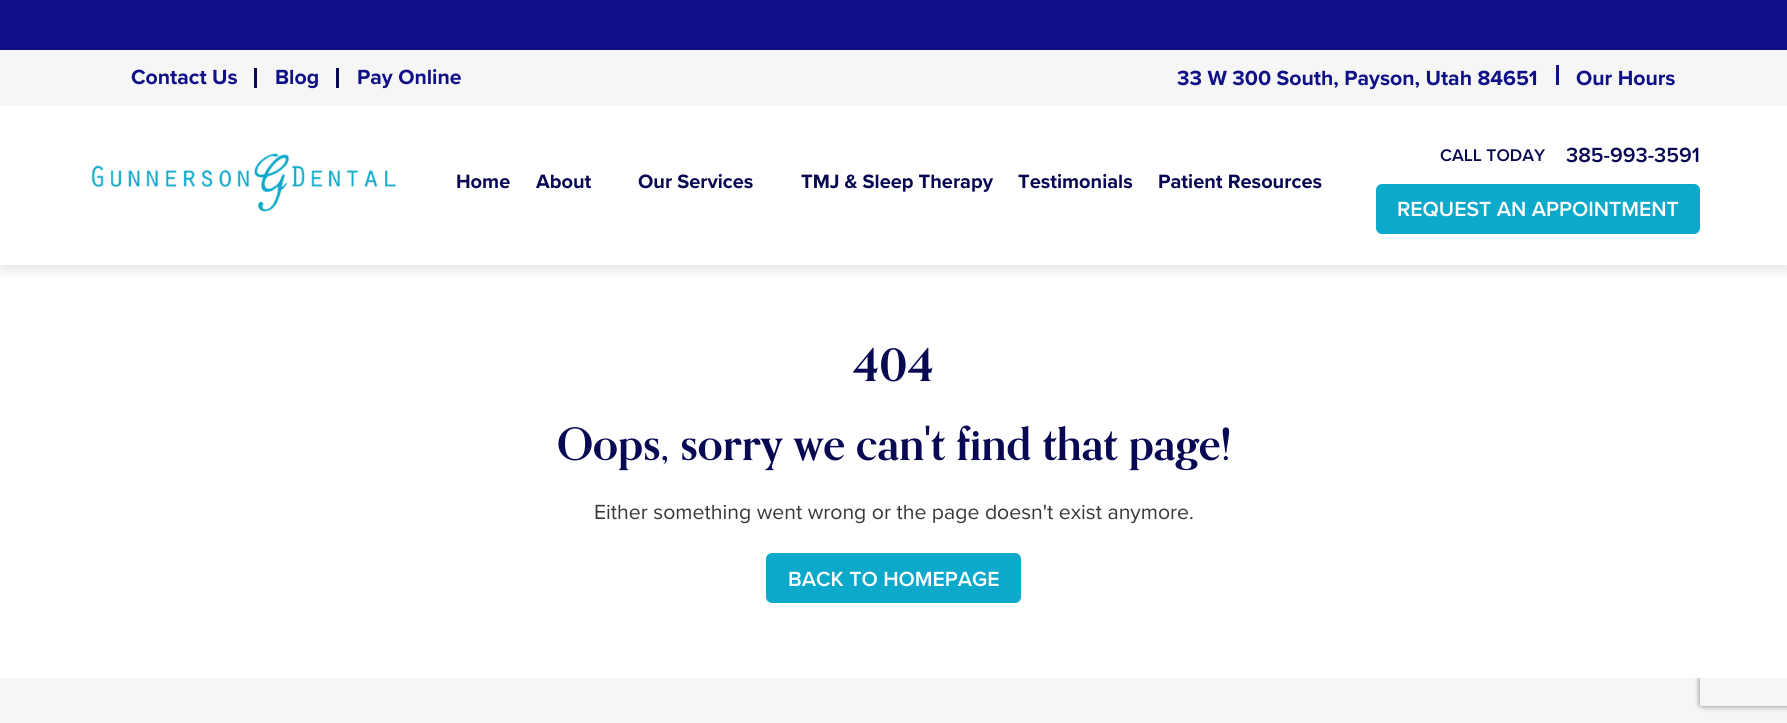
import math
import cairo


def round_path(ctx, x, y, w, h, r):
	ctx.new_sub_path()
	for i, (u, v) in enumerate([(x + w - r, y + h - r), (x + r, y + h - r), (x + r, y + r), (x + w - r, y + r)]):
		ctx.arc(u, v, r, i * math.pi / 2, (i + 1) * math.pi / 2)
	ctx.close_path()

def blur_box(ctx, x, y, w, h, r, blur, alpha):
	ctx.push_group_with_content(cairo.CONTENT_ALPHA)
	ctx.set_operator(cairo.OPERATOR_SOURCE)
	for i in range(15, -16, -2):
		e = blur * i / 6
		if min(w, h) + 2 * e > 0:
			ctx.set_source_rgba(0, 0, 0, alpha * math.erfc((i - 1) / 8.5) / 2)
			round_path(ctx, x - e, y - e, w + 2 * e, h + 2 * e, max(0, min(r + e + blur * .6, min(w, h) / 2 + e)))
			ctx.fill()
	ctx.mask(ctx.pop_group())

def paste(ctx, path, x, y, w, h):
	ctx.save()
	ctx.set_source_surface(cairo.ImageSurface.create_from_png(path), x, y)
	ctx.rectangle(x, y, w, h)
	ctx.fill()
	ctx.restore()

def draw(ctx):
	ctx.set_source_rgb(1, 1, 1)
	ctx.paint()
	ctx.save()
	ctx.rectangle(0, 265, 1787, 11)
	ctx.clip()
	ctx.set_source_rgb(0, 0, 0)
	blur_box(ctx, 0, 6, 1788, 265, 0, 6, 0.1)
	ctx.restore()
	ctx.set_source_rgb(0.063, 0.063, 0.537)
	ctx.rectangle(0, 0, 1787, 50)
	ctx.fill()
	ctx.set_source_rgb(0.961, 0.961, 0.961)
	ctx.rectangle(0, 50, 1787, 56)
	ctx.fill()
	ctx.select_font_face('Proxima Nova', cairo.FONT_SLANT_NORMAL, cairo.FONT_WEIGHT_BOLD)
	ctx.set_font_size(21.25)
	ctx.set_source_rgb(0.063, 0.063, 0.537)
	ctx.move_to(131, 84)
	ctx.show_text('Contact Us')
	ctx.set_source_rgb(0.035, 0.035, 0.325)
	ctx.rectangle(254, 68, 3, 20)
	ctx.fill()
	ctx.set_source_rgb(0.063, 0.063, 0.537)
	ctx.move_to(275, 84)
	ctx.show_text('Blog')
	ctx.set_source_rgb(0.035, 0.035, 0.325)
	ctx.rectangle(336, 68, 3, 20)
	ctx.fill()
	ctx.set_source_rgb(0.063, 0.063, 0.537)
	ctx.move_to(357, 84)
	ctx.show_text('Pay Online')
	ctx.move_to(1177, 85)
	ctx.show_text('33 W 300 South, Payson, Utah 84651')
	ctx.rectangle(1556, 65, 3, 20)
	ctx.fill()
	ctx.move_to(1576, 85)
	ctx.show_text('Our Hours')
	paste(ctx, 'media/1.png', 91, 153, 305, 59)
	ctx.set_font_size(20)
	ctx.set_source_rgb(0.035, 0.035, 0.325)
	for x, y, s in [
		(456, 188, 'Home'),
		(536, 188, 'About'),
		(638, 188, 'Our Services'),
		(801, 188, 'TMJ & Sleep Therapy'),
		(1018, 188, 'Testimonials'),
		(1158, 188, 'Patient Resources'),
	]:
		ctx.move_to(x, y)
		ctx.show_text(s)
	ctx.select_font_face('Proxima Nova SemiBold')
	ctx.set_font_size(17.5)
	ctx.move_to(1440, 161)
	ctx.show_text('CALL TODAY')
	ctx.set_font_size(21.25)
	ctx.move_to(1566, 162)
	ctx.show_text('385-993-3591')
	ctx.set_source_rgb(0.051, 0.663, 0.792)
	round_path(ctx, 1377.5, 185.5, 321, 47, 4.5)
	ctx.fill_preserve()
	ctx.set_line_width(3)
	ctx.stroke()
	ctx.set_source_rgb(1, 1, 1)
	ctx.move_to(1397, 216)
	ctx.show_text('REQUEST AN APPOINTMENT')
	ctx.set_source_rgb(0.961, 0.961, 0.961)
	ctx.rectangle(0, 678, 1787, 45)
	ctx.fill()
	ctx.save()
	ctx.set_fill_rule(cairo.FILL_RULE_EVEN_ODD)
	ctx.new_path()
	ctx.move_to(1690, 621)
	ctx.line_to(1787, 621)
	ctx.line_to(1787, 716)
	ctx.line_to(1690, 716)
	ctx.close_path()
	ctx.move_to(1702.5, 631)
	ctx.line_to(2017.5, 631)
	ctx.curve_to(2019, 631, 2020, 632, 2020, 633.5)
	ctx.line_to(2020, 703.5)
	ctx.curve_to(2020, 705, 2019, 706, 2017.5, 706)
	ctx.line_to(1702.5, 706)
	ctx.curve_to(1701, 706, 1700, 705, 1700, 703.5)
	ctx.line_to(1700, 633.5)
	ctx.curve_to(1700, 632, 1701, 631, 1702.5, 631)
	ctx.close_path()
	ctx.clip()
	ctx.set_source_rgb(0.502, 0.502, 0.502)
	blur_box(ctx, 1700, 631, 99, 75, 2.5, 3, 1)
	ctx.restore()
	ctx.set_source_rgb(1, 1, 1)
	ctx.rectangle(1694, 625, 93, 53)
	ctx.fill()
	ctx.select_font_face('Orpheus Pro', cairo.FONT_SLANT_NORMAL, cairo.FONT_WEIGHT_BOLD)
	ctx.set_font_size(45)
	ctx.set_source_rgb(0.035, 0.035, 0.325)
	ctx.move_to(853, 381)
	ctx.show_text('404')
	ctx.move_to(557, 460)
	ctx.show_text('Oops, sorry we can\'t find that page!')
	ctx.select_font_face('Proxima Nova')
	ctx.set_font_size(21.25)
	ctx.set_source_rgb(0.22, 0.22, 0.224)
	ctx.move_to(594, 519)
	ctx.show_text('Either something went wrong or the page doesn\'t exist anymore.')
	ctx.set_source_rgb(0.051, 0.663, 0.792)
	round_path(ctx, 767.5, 554.5, 252, 47, 4.5)
	ctx.fill_preserve()
	ctx.stroke()
	ctx.select_font_face('Proxima Nova SemiBold')
	ctx.set_source_rgb(1, 1, 1)
	ctx.move_to(788, 586)
	ctx.show_text('BACK TO HOMEPAGE')


surface = cairo.ImageSurface(cairo.FORMAT_RGB24, 1787, 723)
ctx = cairo.Context(surface)
options = cairo.FontOptions()
options.set_hint_metrics(cairo.HINT_METRICS_OFF)
options.set_hint_style(cairo.HINT_STYLE_NONE)
ctx.set_font_options(options)
ctx.set_miter_limit(4)
draw(ctx)
surface.write_to_png('image.png')
